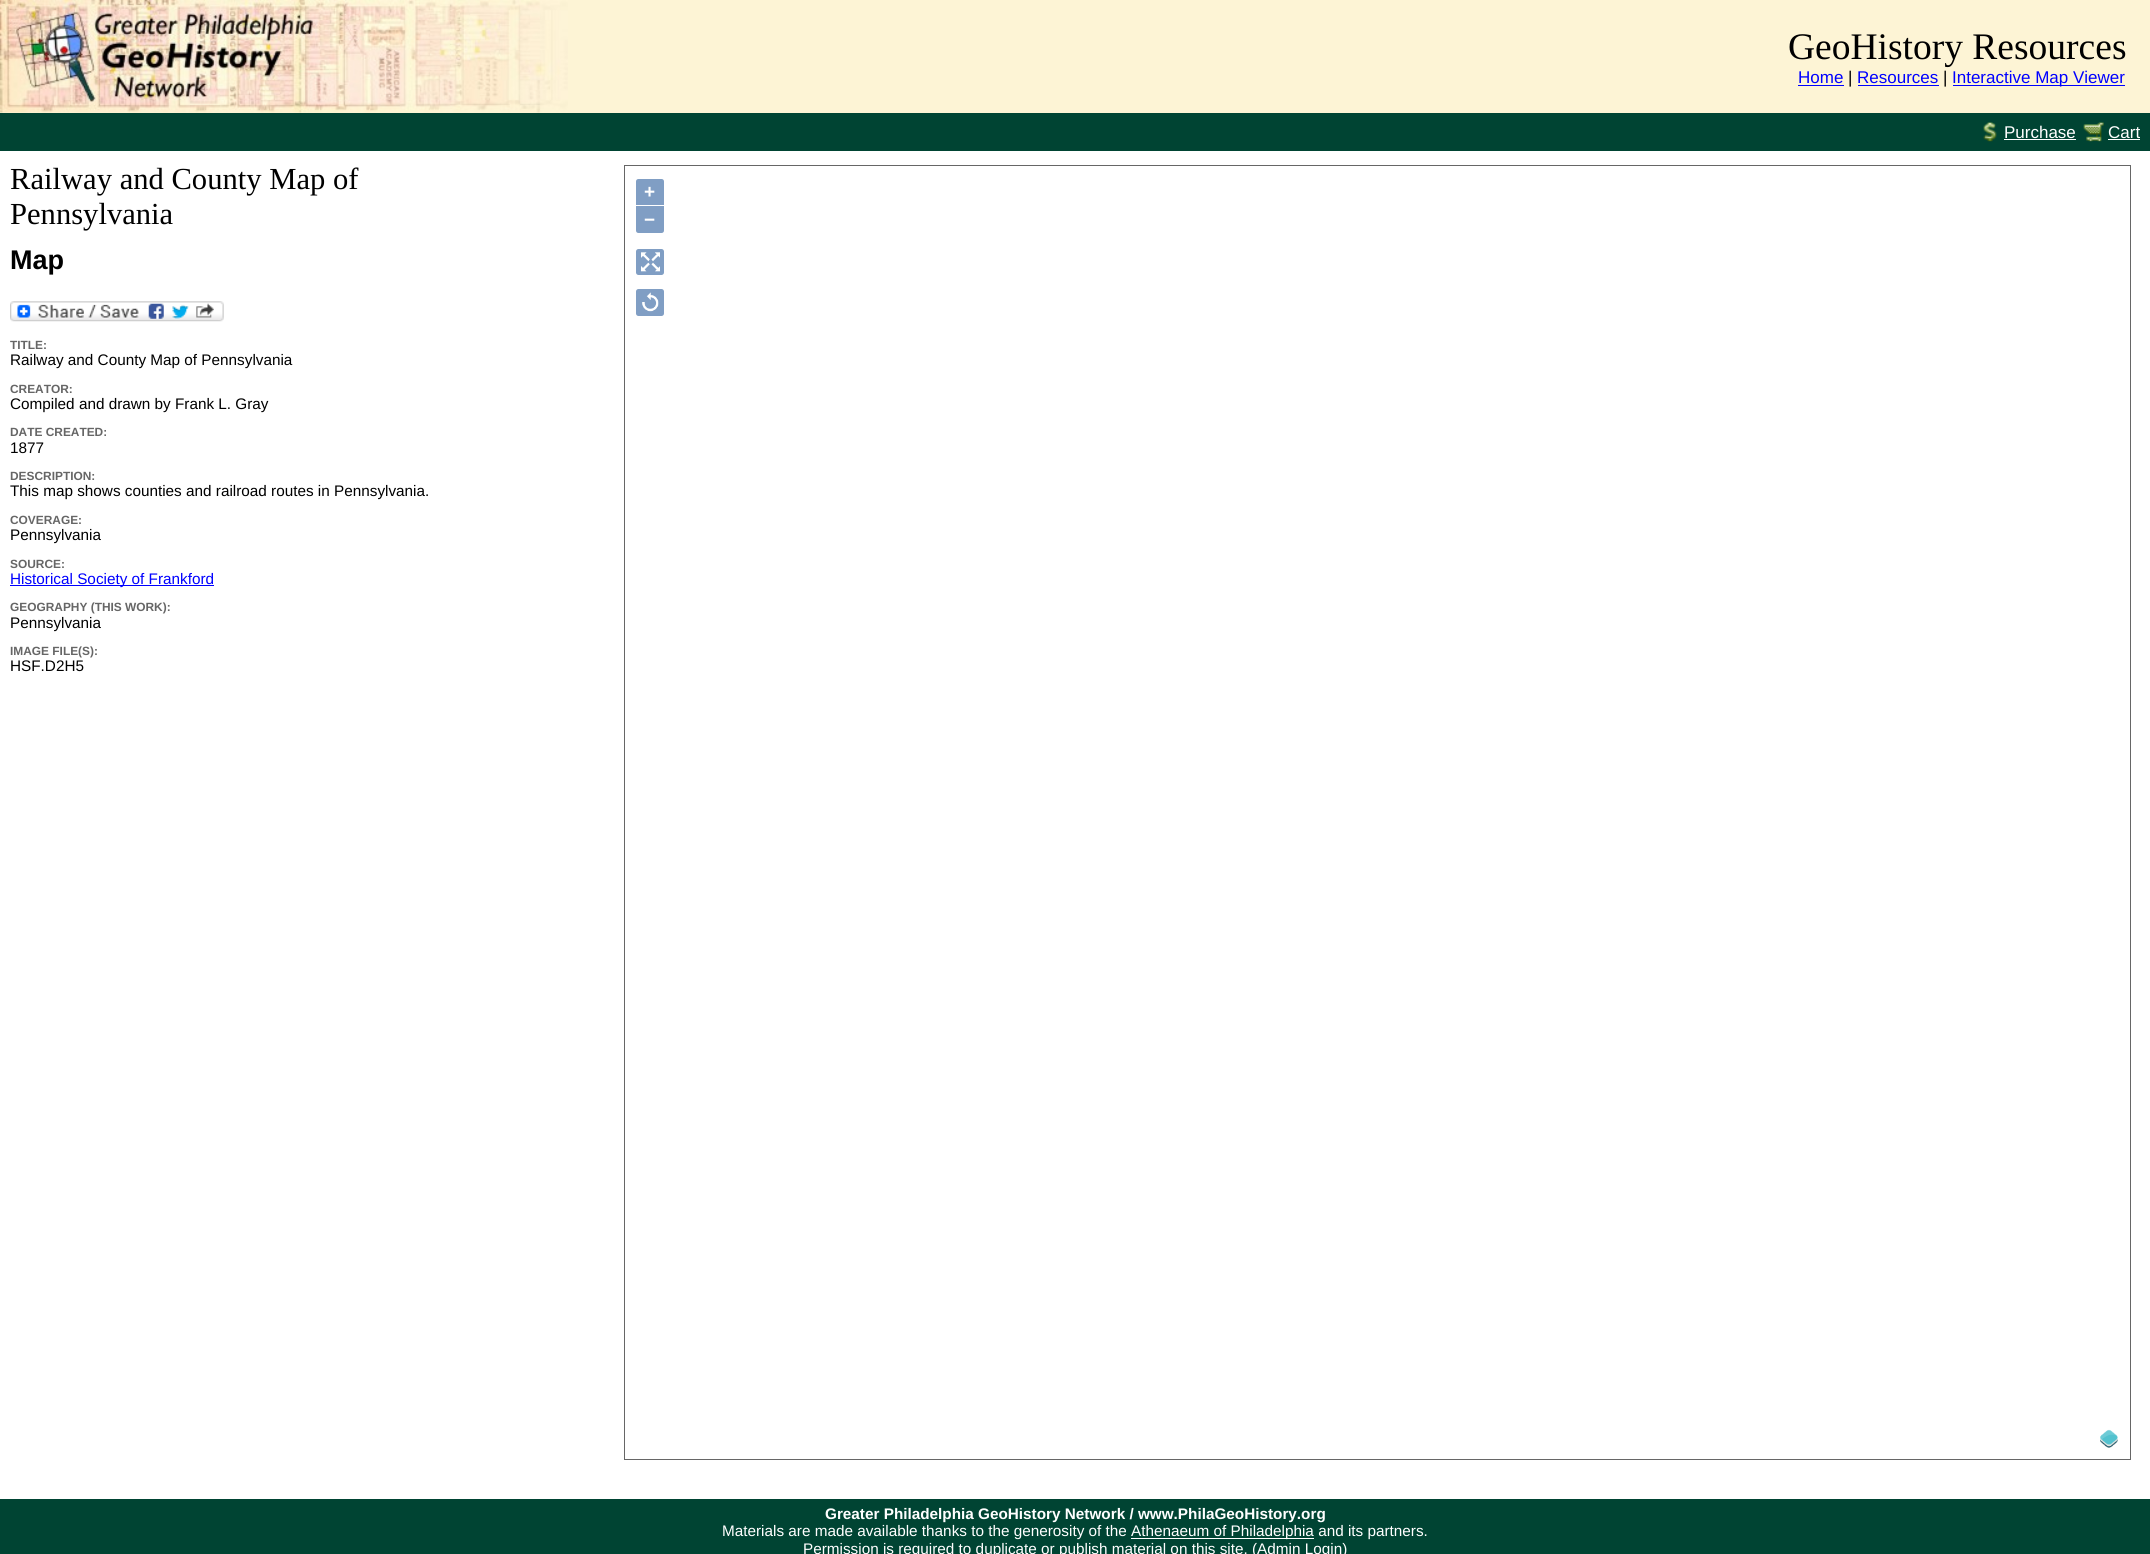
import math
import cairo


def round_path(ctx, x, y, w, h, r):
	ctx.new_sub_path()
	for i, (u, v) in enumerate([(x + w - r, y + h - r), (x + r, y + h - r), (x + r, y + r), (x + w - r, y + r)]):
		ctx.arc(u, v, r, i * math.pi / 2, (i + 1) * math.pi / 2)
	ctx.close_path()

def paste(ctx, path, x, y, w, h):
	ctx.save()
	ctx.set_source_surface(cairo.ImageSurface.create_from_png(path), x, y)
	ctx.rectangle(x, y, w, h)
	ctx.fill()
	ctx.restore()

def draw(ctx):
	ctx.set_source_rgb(1, 1, 1)
	ctx.paint()
	ctx.set_source_rgb(0.992, 0.957, 0.835)
	ctx.rectangle(0, 0, 2150, 113)
	ctx.fill()
	paste(ctx, 'media/1.png', 0, 0, 568, 113)
	ctx.select_font_face('Liberation Serif')
	ctx.set_font_size(37.5)
	ctx.set_source_rgb(0, 0, 0)
	ctx.move_to(1788, 59)
	ctx.show_text('GeoHistory Resources')
	ctx.select_font_face('Liberation Sans')
	ctx.set_font_size(17)
	ctx.set_source_rgb(0, 0, 1)
	ctx.move_to(1798, 83)
	ctx.show_text('Home')
	ctx.rectangle(1798, 85, 46, 1)
	ctx.fill()
	ctx.set_source_rgb(0, 0, 0)
	ctx.move_to(1848, 83)
	ctx.show_text('|')
	ctx.set_source_rgb(0, 0, 1)
	ctx.move_to(1857, 83)
	ctx.show_text('Resources')
	ctx.rectangle(1858, 85, 81, 1)
	ctx.fill()
	ctx.set_source_rgb(0, 0, 0)
	ctx.move_to(1943, 83)
	ctx.show_text('|')
	ctx.set_source_rgb(0, 0, 1)
	ctx.rectangle(1953, 85, 172, 1)
	ctx.fill()
	ctx.move_to(1952, 83)
	ctx.show_text('Interactive Map Viewer')
	ctx.set_source_rgb(0, 0.267, 0.2)
	ctx.rectangle(0, 113, 2150, 38)
	ctx.fill()
	paste(ctx, 'media/2.png', 1983, 122, 14, 20)
	ctx.set_source_rgb(1, 1, 1)
	ctx.move_to(2004, 138)
	ctx.show_text('Purchase')
	ctx.rectangle(2004, 139, 72, 1)
	ctx.fill()
	paste(ctx, 'media/3.png', 2083, 122, 21, 20)
	ctx.move_to(2108, 138)
	ctx.show_text('Cart')
	ctx.rectangle(2108, 139, 32, 1)
	ctx.fill()
	ctx.select_font_face('Liberation Serif')
	ctx.set_font_size(30.6)
	ctx.set_source_rgb(0, 0, 0)
	ctx.move_to(10, 189)
	ctx.show_text('Railway and County Map of')
	ctx.move_to(10, 224)
	ctx.show_text('Pennsylvania')
	ctx.select_font_face('Liberation Sans', cairo.FONT_SLANT_NORMAL, cairo.FONT_WEIGHT_BOLD)
	ctx.set_font_size(27)
	ctx.move_to(10, 269)
	ctx.show_text('Map')
	paste(ctx, 'media/4.png', 10, 301, 214, 21)
	ctx.set_font_size(11.9)
	ctx.set_source_rgb(0.4, 0.4, 0.4)
	ctx.move_to(10, 349)
	ctx.show_text('TITLE:')
	ctx.select_font_face('Liberation Sans')
	ctx.set_font_size(15.3)
	ctx.set_source_rgb(0, 0, 0)
	ctx.move_to(10, 365)
	ctx.show_text('Railway and County Map of Pennsylvania')
	ctx.select_font_face('Liberation Sans', cairo.FONT_SLANT_NORMAL, cairo.FONT_WEIGHT_BOLD)
	ctx.set_font_size(11.9)
	ctx.set_source_rgb(0.4, 0.4, 0.4)
	ctx.move_to(10, 393)
	ctx.show_text('CREATOR:')
	ctx.select_font_face('Liberation Sans')
	ctx.set_font_size(15.3)
	ctx.set_source_rgb(0, 0, 0)
	ctx.move_to(10, 409)
	ctx.show_text('Compiled and drawn by Frank L. Gray')
	ctx.select_font_face('Liberation Sans', cairo.FONT_SLANT_NORMAL, cairo.FONT_WEIGHT_BOLD)
	ctx.set_font_size(11.9)
	ctx.set_source_rgb(0.4, 0.4, 0.4)
	ctx.move_to(10, 436)
	ctx.show_text('DATE CREATED:')
	ctx.select_font_face('Liberation Sans')
	ctx.set_font_size(15.3)
	ctx.set_source_rgb(0, 0, 0)
	ctx.move_to(10, 453)
	ctx.show_text('1877')
	ctx.select_font_face('Liberation Sans', cairo.FONT_SLANT_NORMAL, cairo.FONT_WEIGHT_BOLD)
	ctx.set_font_size(11.9)
	ctx.set_source_rgb(0.4, 0.4, 0.4)
	ctx.move_to(10, 480)
	ctx.show_text('DESCRIPTION:')
	ctx.select_font_face('Liberation Sans')
	ctx.set_font_size(15.3)
	ctx.set_source_rgb(0, 0, 0)
	ctx.move_to(10, 496)
	ctx.show_text('This map shows counties and railroad routes in Pennsylvania.')
	ctx.select_font_face('Liberation Sans', cairo.FONT_SLANT_NORMAL, cairo.FONT_WEIGHT_BOLD)
	ctx.set_font_size(11.9)
	ctx.set_source_rgb(0.4, 0.4, 0.4)
	ctx.move_to(10, 524)
	ctx.show_text('COVERAGE:')
	ctx.select_font_face('Liberation Sans')
	ctx.set_font_size(15.3)
	ctx.set_source_rgb(0, 0, 0)
	ctx.move_to(10, 540)
	ctx.show_text('Pennsylvania')
	ctx.select_font_face('Liberation Sans', cairo.FONT_SLANT_NORMAL, cairo.FONT_WEIGHT_BOLD)
	ctx.set_font_size(11.9)
	ctx.set_source_rgb(0.4, 0.4, 0.4)
	ctx.move_to(10, 568)
	ctx.show_text('SOURCE:')
	ctx.set_source_rgb(0, 0, 1)
	ctx.rectangle(10, 585, 204, 1)
	ctx.fill()
	ctx.select_font_face('Liberation Sans')
	ctx.set_font_size(15.3)
	ctx.move_to(10, 584)
	ctx.show_text('Historical Society of Frankford')
	ctx.select_font_face('Liberation Sans', cairo.FONT_SLANT_NORMAL, cairo.FONT_WEIGHT_BOLD)
	ctx.set_font_size(11.9)
	ctx.set_source_rgb(0.4, 0.4, 0.4)
	ctx.move_to(10, 611)
	ctx.show_text('GEOGRAPHY (THIS WORK):')
	ctx.select_font_face('Liberation Sans')
	ctx.set_font_size(15.3)
	ctx.set_source_rgb(0, 0, 0)
	ctx.move_to(10, 628)
	ctx.show_text('Pennsylvania')
	ctx.select_font_face('Liberation Sans', cairo.FONT_SLANT_NORMAL, cairo.FONT_WEIGHT_BOLD)
	ctx.set_font_size(11.9)
	ctx.set_source_rgb(0.4, 0.4, 0.4)
	ctx.move_to(10, 655)
	ctx.show_text('IMAGE FILE(S):')
	ctx.select_font_face('Liberation Sans')
	ctx.set_font_size(15.3)
	ctx.set_source_rgb(0, 0, 0)
	ctx.move_to(10, 671)
	ctx.show_text('HSF.D2H5')
	ctx.rectangle(624.5, 165.5, 1506, 1294)
	ctx.set_source_rgb(0.4, 0.4, 0.4)
	ctx.set_line_width(1)
	ctx.stroke()
	ctx.set_source_rgb(0.502, 0.62, 0.769)
	ctx.new_path()
	ctx.move_to(638.5, 179)
	ctx.line_to(661.5, 179)
	ctx.curve_to(663, 179, 664, 180, 664, 181.5)
	ctx.line_to(664, 205)
	ctx.line_to(636, 205)
	ctx.line_to(636, 181.5)
	ctx.curve_to(636, 180, 637, 179, 638.5, 179)
	ctx.close_path()
	ctx.fill()
	ctx.select_font_face('Liberation Sans', cairo.FONT_SLANT_NORMAL, cairo.FONT_WEIGHT_BOLD)
	ctx.set_font_size(19)
	ctx.set_source_rgb(1, 1, 1)
	ctx.move_to(644, 198)
	ctx.show_text('+')
	ctx.set_source_rgb(0.502, 0.62, 0.769)
	ctx.new_path()
	ctx.move_to(636, 206)
	ctx.line_to(664, 206)
	ctx.line_to(664, 230.5)
	ctx.curve_to(664, 232, 663, 233, 661.5, 233)
	ctx.line_to(638.5, 233)
	ctx.curve_to(637, 233, 636, 232, 636, 230.5)
	ctx.close_path()
	ctx.fill()
	ctx.set_source_rgb(1, 1, 1)
	ctx.move_to(644, 226)
	ctx.show_text('−')
	ctx.set_source_rgb(0.502, 0.62, 0.769)
	round_path(ctx, 636, 249, 28, 26, 2.5)
	ctx.fill()
	paste(ctx, 'media/5.png', 641, 252, 19, 20)
	round_path(ctx, 636, 289, 28, 27, 2.5)
	ctx.fill()
	paste(ctx, 'media/6.png', 642, 292, 17, 20)
	paste(ctx, 'media/7.png', 2100, 1429, 18, 19)
	ctx.set_source_rgb(0, 0.267, 0.2)
	ctx.rectangle(0, 1499, 2150, 55)
	ctx.fill()
	ctx.set_font_size(15.3)
	ctx.set_source_rgb(1, 1, 1)
	ctx.move_to(825, 1519)
	ctx.show_text('Greater Philadelphia GeoHistory Network / www.PhilaGeoHistory.org')
	ctx.select_font_face('Liberation Sans')
	ctx.move_to(722, 1536)
	ctx.show_text('Materials are made available thanks to the generosity of the')
	ctx.rectangle(1131, 1538, 183, 1)
	ctx.fill()
	ctx.move_to(1131, 1536)
	ctx.show_text('Athenaeum of Philadelphia and its partners.')
	ctx.move_to(803, 1554)
	ctx.show_text('Permission is required to duplicate or publish material on this site. (Admin Login)')


surface = cairo.ImageSurface(cairo.FORMAT_RGB24, 2150, 1554)
ctx = cairo.Context(surface)
options = cairo.FontOptions()
options.set_hint_metrics(cairo.HINT_METRICS_OFF)
options.set_hint_style(cairo.HINT_STYLE_NONE)
ctx.set_font_options(options)
ctx.set_miter_limit(4)
draw(ctx)
surface.write_to_png('image.png')
